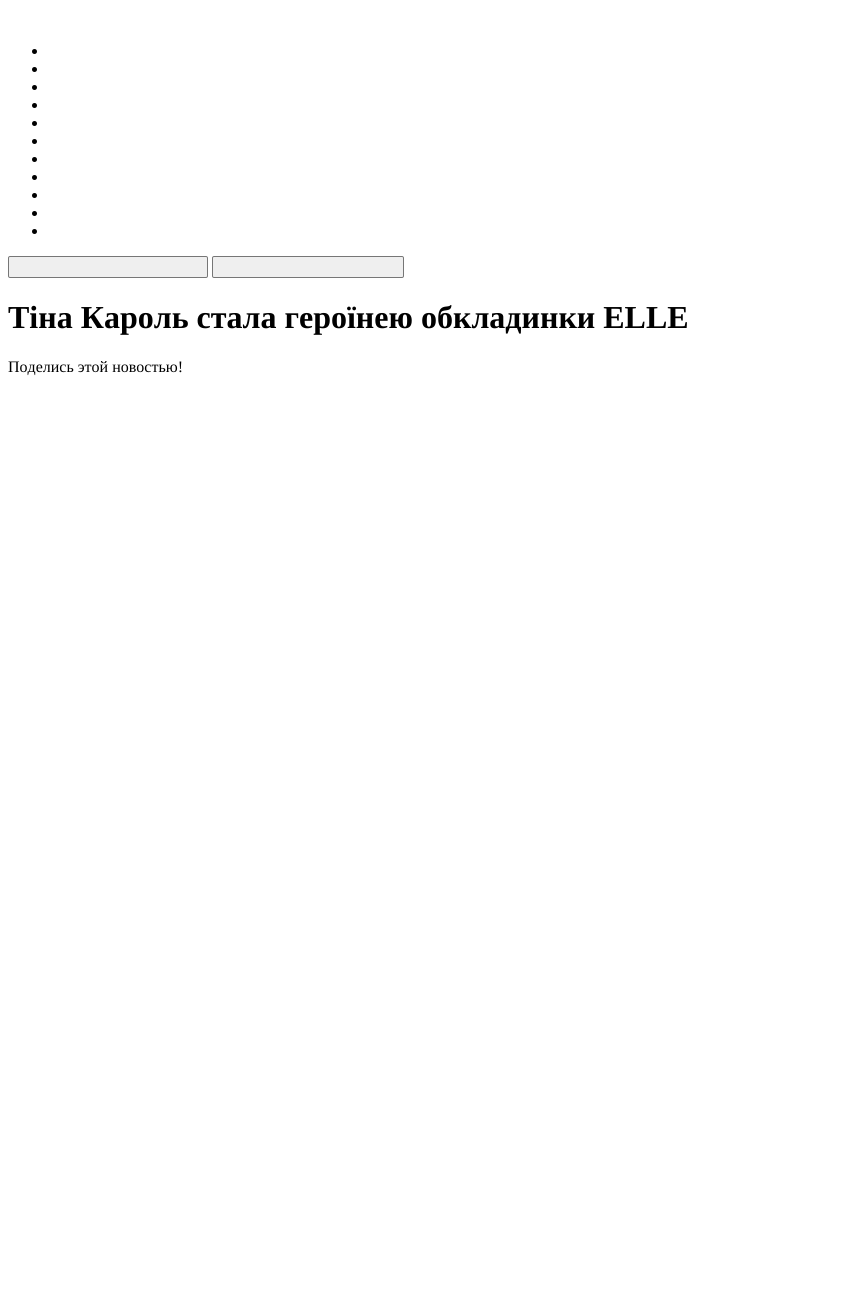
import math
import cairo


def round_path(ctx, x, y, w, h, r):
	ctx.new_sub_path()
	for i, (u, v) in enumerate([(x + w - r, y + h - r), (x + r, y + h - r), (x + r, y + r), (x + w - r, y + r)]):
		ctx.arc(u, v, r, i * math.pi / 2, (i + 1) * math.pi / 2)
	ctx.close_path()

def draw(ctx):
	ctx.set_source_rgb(1, 1, 1)
	ctx.paint()
	ctx.set_source_rgb(0, 0, 0)
	ctx.arc(34.5, 51.5, 2.5, 0, 2 * math.pi)
	ctx.fill()
	ctx.arc(34.5, 69.5, 2.5, 0, 2 * math.pi)
	ctx.fill()
	ctx.arc(34.5, 87.5, 2.5, 0, 2 * math.pi)
	ctx.fill()
	ctx.arc(34.5, 105.5, 2.5, 0, 2 * math.pi)
	ctx.fill()
	ctx.arc(34.5, 123.5, 2.5, 0, 2 * math.pi)
	ctx.fill()
	ctx.arc(34.5, 141.5, 2.5, 0, 2 * math.pi)
	ctx.fill()
	ctx.arc(34.5, 159.5, 2.5, 0, 2 * math.pi)
	ctx.fill()
	ctx.arc(34.5, 177.5, 2.5, 0, 2 * math.pi)
	ctx.fill()
	ctx.arc(34.5, 195.5, 2.5, 0, 2 * math.pi)
	ctx.fill()
	ctx.arc(34.5, 213.5, 2.5, 0, 2 * math.pi)
	ctx.fill()
	ctx.arc(34.5, 231.5, 2.5, 0, 2 * math.pi)
	ctx.fill()
	ctx.set_source_rgb(0.937, 0.937, 0.937)
	round_path(ctx, 8.5, 256.5, 199, 21, 1.5)
	ctx.fill_preserve()
	ctx.set_source_rgb(0.463, 0.463, 0.463)
	ctx.set_line_width(1)
	ctx.stroke()
	ctx.set_source_rgb(0.937, 0.937, 0.937)
	round_path(ctx, 212.5, 256.5, 191, 21, 1.5)
	ctx.fill_preserve()
	ctx.set_source_rgb(0.463, 0.463, 0.463)
	ctx.stroke()
	ctx.select_font_face('Liberation Serif', cairo.FONT_SLANT_NORMAL, cairo.FONT_WEIGHT_BOLD)
	ctx.set_font_size(32)
	ctx.set_source_rgb(0, 0, 0)
	ctx.move_to(8, 328)
	ctx.show_text('Тіна Кароль стала героїнею обкладинки ELLE')
	ctx.select_font_face('Liberation Serif')
	ctx.set_font_size(16)
	ctx.move_to(8, 372)
	ctx.show_text('Поделись этой новостью!')


surface = cairo.ImageSurface(cairo.FORMAT_RGB24, 848, 1313)
ctx = cairo.Context(surface)
options = cairo.FontOptions()
options.set_hint_metrics(cairo.HINT_METRICS_OFF)
options.set_hint_style(cairo.HINT_STYLE_NONE)
ctx.set_font_options(options)
ctx.set_miter_limit(4)
draw(ctx)
surface.write_to_png('image.png')
